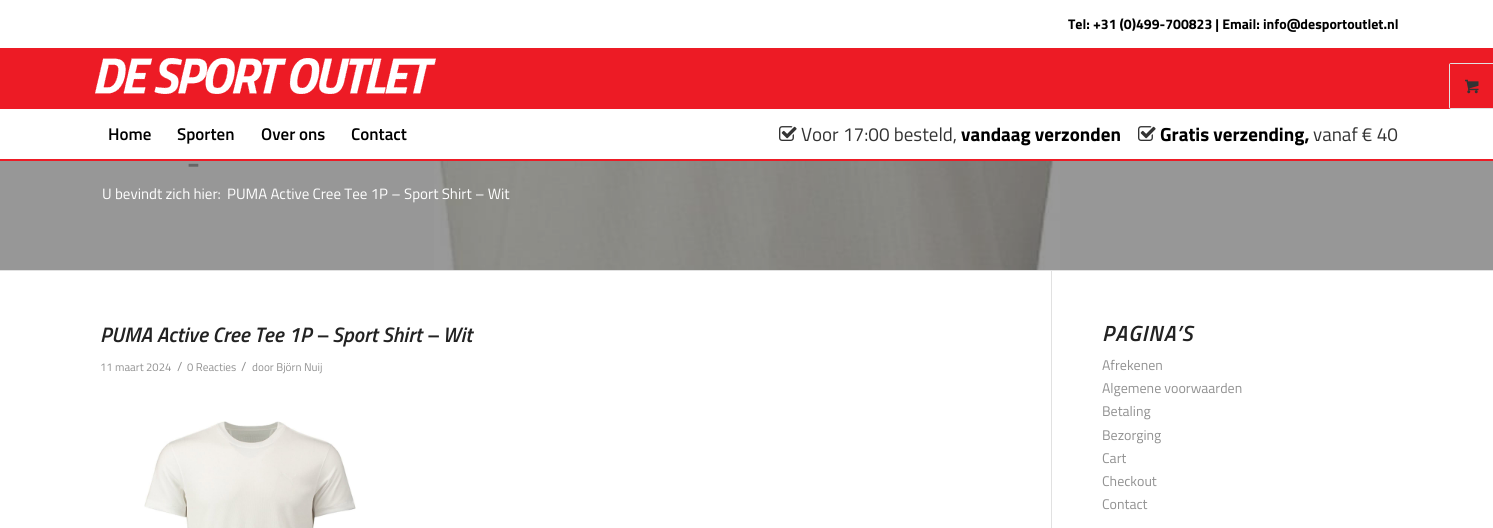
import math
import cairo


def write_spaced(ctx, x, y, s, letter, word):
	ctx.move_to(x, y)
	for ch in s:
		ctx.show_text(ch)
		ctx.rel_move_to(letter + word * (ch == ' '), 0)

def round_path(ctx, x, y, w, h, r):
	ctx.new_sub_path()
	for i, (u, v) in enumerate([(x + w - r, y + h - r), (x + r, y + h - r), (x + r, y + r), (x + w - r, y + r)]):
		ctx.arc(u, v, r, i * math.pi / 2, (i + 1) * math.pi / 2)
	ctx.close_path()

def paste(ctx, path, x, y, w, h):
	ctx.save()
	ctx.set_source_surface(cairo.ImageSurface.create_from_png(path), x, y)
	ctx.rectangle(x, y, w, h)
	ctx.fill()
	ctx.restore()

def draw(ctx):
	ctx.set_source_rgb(0.592, 0.592, 0.592)
	ctx.paint()
	ctx.set_source_rgb(0.929, 0.106, 0.145)
	ctx.rectangle(0, 159, 1493, 2)
	ctx.fill()
	ctx.set_source_rgb(1, 1, 1)
	ctx.rectangle(0, 0, 1493, 48)
	ctx.fill()
	ctx.select_font_face('Titillium Web', cairo.FONT_SLANT_NORMAL, cairo.FONT_WEIGHT_BOLD)
	ctx.set_font_size(14)
	ctx.set_source_rgb(0, 0, 0)
	ctx.move_to(1068, 29)
	ctx.show_text('Tel: +31 (0)499-700823 | Email: info@desportoutlet.nl')
	ctx.set_source_rgb(0.929, 0.106, 0.145)
	ctx.rectangle(0, 48, 1493, 61)
	ctx.fill()
	paste(ctx, 'media/1.png', 95, 58, 341, 36)
	round_path(ctx, 1449.5, 63.5, 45, 45, 1.5)
	ctx.set_source_rgb(0.882, 0.882, 0.882)
	ctx.set_line_width(1)
	ctx.stroke()
	ctx.set_source_rgb(0.929, 0.106, 0.145)
	ctx.rectangle(1450, 64, 1, 44)
	ctx.fill()
	paste(ctx, 'media/2.png', 1465, 79, 14, 15)
	ctx.set_source_rgb(1, 1, 1)
	ctx.rectangle(0, 109, 1493, 50)
	ctx.fill()
	ctx.select_font_face('Titillium Web SemiBold')
	ctx.set_font_size(17)
	ctx.set_source_rgb(0, 0, 0)
	for x, y, s in [
		(108, 140, 'Home'),
		(177, 140, 'Sporten'),
		(261, 140, 'Over ons'),
		(351, 140, 'Contact'),
	]:
		ctx.move_to(x, y)
		ctx.show_text(s)
	paste(ctx, 'media/3.png', 779, 126, 18, 15)
	ctx.select_font_face('Titillium Web')
	ctx.set_font_size(19)
	ctx.set_source_rgb(0.2, 0.2, 0.2)
	ctx.move_to(801, 141)
	ctx.show_text('Voor 17:00 besteld,')
	ctx.select_font_face('Titillium Web', cairo.FONT_SLANT_NORMAL, cairo.FONT_WEIGHT_BOLD)
	ctx.set_source_rgb(0, 0, 0)
	ctx.move_to(961, 141)
	ctx.show_text('vandaag verzonden')
	paste(ctx, 'media/3.png', 1138, 126, 18, 15)
	ctx.move_to(1160, 141)
	ctx.show_text('Gratis verzending,')
	ctx.select_font_face('Titillium Web')
	ctx.set_source_rgb(0.2, 0.2, 0.2)
	ctx.move_to(1313, 141)
	ctx.show_text('vanaf € 40')
	paste(ctx, 'media/4.png', 434, 161, 626, 109)
	ctx.select_font_face('Open Sans')
	ctx.set_font_size(40)
	ctx.set_source_rgb(0.4, 0.4, 0.4)
	ctx.move_to(187, 176)
	ctx.show_text('-')
	ctx.select_font_face('Titillium Web')
	ctx.set_font_size(15)
	ctx.set_source_rgb(1, 1, 1)
	ctx.move_to(102, 199)
	ctx.show_text('U bevindt zich hier:')
	ctx.move_to(227, 199)
	ctx.show_text('PUMA Active Cree Tee 1P – Sport Shirt – Wit')
	ctx.rectangle(0, 271, 1493, 257)
	ctx.fill()
	ctx.set_source_rgb(0.882, 0.882, 0.882)
	ctx.rectangle(0, 270, 1493, 1)
	ctx.rectangle(1051, 271, 1, 257)
	ctx.fill()
	ctx.select_font_face('Titillium Web SemiBold', cairo.FONT_SLANT_ITALIC)
	ctx.set_font_size(21)
	ctx.set_source_rgb(0.133, 0.133, 0.133)
	ctx.move_to(100, 342)
	ctx.show_text('PUMA Active Cree Tee 1P – Sport Shirt – Wit')
	ctx.select_font_face('Titillium Web')
	ctx.set_font_size(11.25)
	ctx.set_source_rgb(0.569, 0.569, 0.569)
	ctx.move_to(100, 371)
	ctx.show_text('11 maart 2024')
	ctx.set_font_size(13)
	ctx.move_to(177, 371)
	ctx.show_text('/')
	ctx.set_font_size(11.25)
	ctx.move_to(187, 371)
	ctx.show_text('0 Reacties')
	ctx.set_font_size(13)
	ctx.move_to(241, 371)
	ctx.show_text('/')
	ctx.set_font_size(11.25)
	ctx.move_to(252, 371)
	ctx.show_text('door Björn Nuij')
	paste(ctx, 'media/5.png', 144, 421, 212, 107)
	ctx.select_font_face('Titillium Web SemiBold', cairo.FONT_SLANT_ITALIC)
	ctx.set_font_size(22)
	ctx.set_source_rgb(0.133, 0.133, 0.133)
	write_spaced(ctx, 1102, 341, 'PAGINA’S', 1, 0)
	ctx.select_font_face('Titillium Web')
	ctx.set_font_size(14)
	ctx.set_source_rgb(0.569, 0.569, 0.569)
	for x, y, s in [
		(1102, 370, 'Afrekenen'),
		(1102, 393, 'Algemene voorwaarden'),
		(1102, 416, 'Betaling'),
		(1102, 440, 'Bezorging'),
		(1102, 463, 'Cart'),
		(1102, 486, 'Checkout'),
		(1102, 509, 'Contact'),
	]:
		ctx.move_to(x, y)
		ctx.show_text(s)


surface = cairo.ImageSurface(cairo.FORMAT_RGB24, 1493, 528)
ctx = cairo.Context(surface)
options = cairo.FontOptions()
options.set_hint_metrics(cairo.HINT_METRICS_OFF)
options.set_hint_style(cairo.HINT_STYLE_NONE)
ctx.set_font_options(options)
ctx.set_miter_limit(4)
draw(ctx)
surface.write_to_png('image.png')
